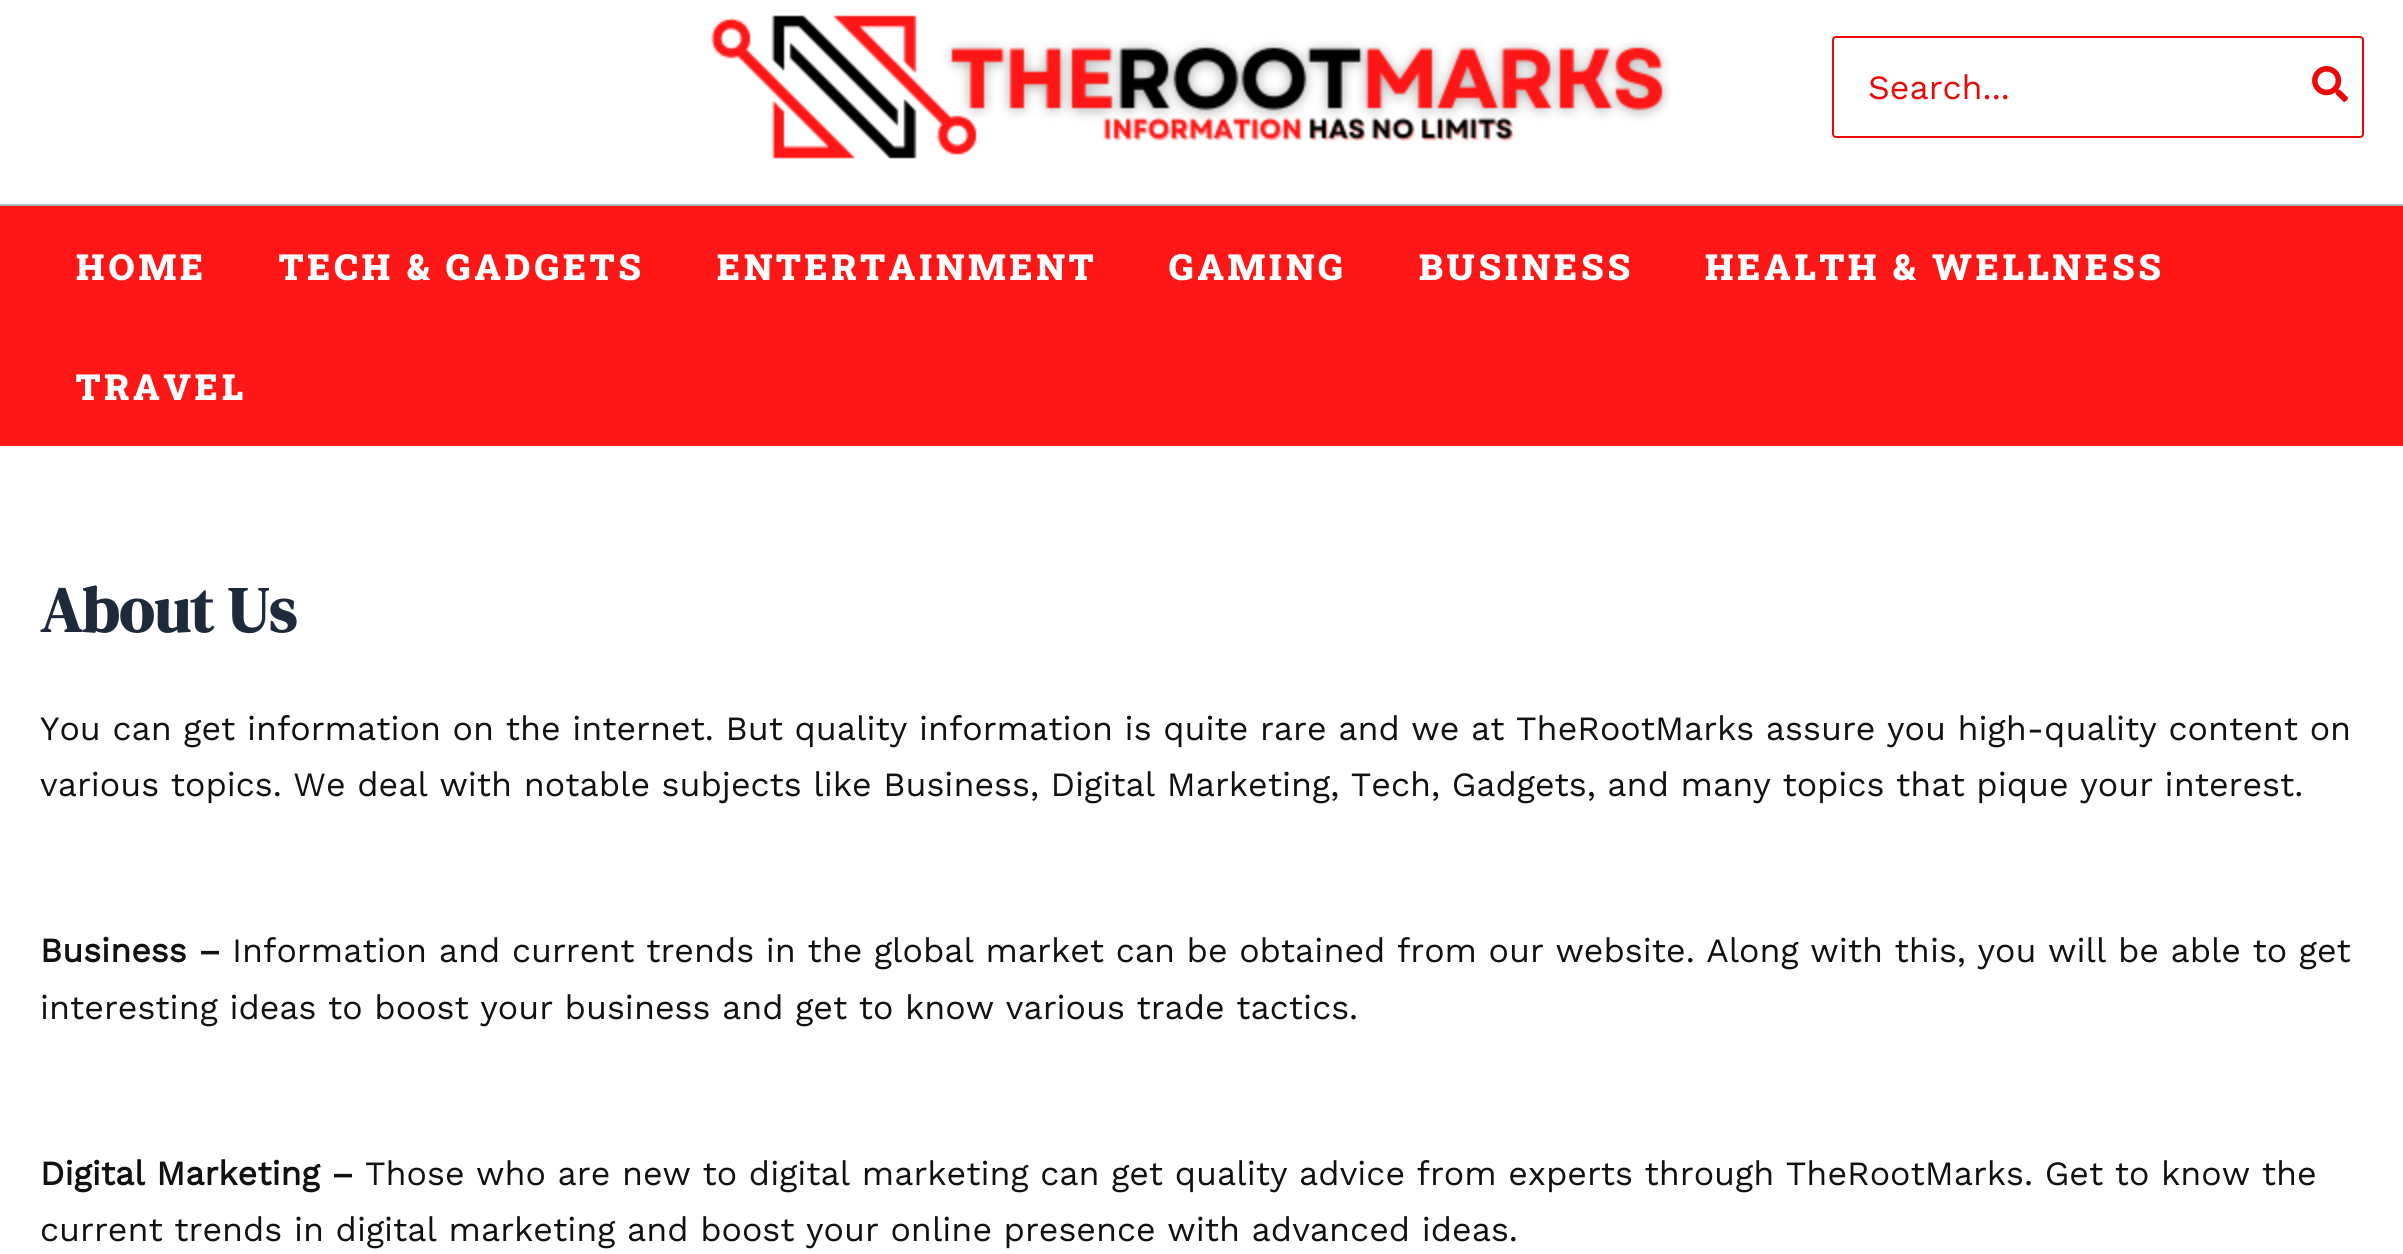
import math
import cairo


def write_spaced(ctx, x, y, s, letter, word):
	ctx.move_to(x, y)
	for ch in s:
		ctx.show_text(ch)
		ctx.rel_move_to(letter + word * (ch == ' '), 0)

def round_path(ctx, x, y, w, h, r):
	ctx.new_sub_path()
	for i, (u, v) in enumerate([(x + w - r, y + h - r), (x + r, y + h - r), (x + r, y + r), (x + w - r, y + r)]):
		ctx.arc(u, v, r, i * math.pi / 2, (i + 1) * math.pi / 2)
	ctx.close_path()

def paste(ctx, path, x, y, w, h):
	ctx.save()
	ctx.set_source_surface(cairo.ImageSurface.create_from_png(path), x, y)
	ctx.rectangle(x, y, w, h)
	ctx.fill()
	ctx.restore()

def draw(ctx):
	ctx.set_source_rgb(1, 1, 1)
	ctx.paint()
	ctx.set_source_rgb(0.678, 0.714, 0.745)
	ctx.rectangle(0, 204, 2403, 2)
	ctx.fill()
	paste(ctx, 'media/1.png', 711, 15, 959, 144)
	round_path(ctx, 1833, 37, 530, 100, 3)
	ctx.set_source_rgb(0.925, 0.039, 0.039)
	ctx.stroke()
	ctx.select_font_face('Work Sans')
	ctx.set_font_size(34)
	ctx.set_source_rgb(0.918, 0.035, 0.035)
	ctx.move_to(1868, 99)
	ctx.show_text('Search...')
	paste(ctx, 'media/2.png', 2312, 66, 36, 36)
	ctx.set_source_rgb(1, 0.086, 0.086)
	ctx.rectangle(0, 206, 2403, 240)
	ctx.fill()
	ctx.select_font_face('Roboto Slab Black')
	ctx.set_font_size(36)
	ctx.set_source_rgb(1, 1, 1)
	for x, y, s in [
		(76, 280, 'HOME'),
		(279, 280, 'TECH & GADGETS'),
		(717, 280, 'ENTERTAINMENT'),
		(1169, 280, 'GAMING'),
		(1419, 280, 'BUSINESS'),
		(1705, 280, 'HEALTH & WELLNESS'),
		(76, 400, 'TRAVEL'),
	]:
		write_spaced(ctx, x, y, s, 4, 0)
	ctx.select_font_face('DM Serif Display', cairo.FONT_SLANT_NORMAL, cairo.FONT_WEIGHT_BOLD)
	ctx.set_font_size(64)
	ctx.set_source_rgb(0.118, 0.161, 0.231)
	ctx.move_to(40, 632)
	ctx.show_text('About Us')
	ctx.select_font_face('Work Sans')
	ctx.set_font_size(34)
	ctx.set_source_rgb(0.067, 0.067, 0.067)
	ctx.move_to(40, 740)
	ctx.show_text('You can get information on the internet. But quality information is quite rare and we at TheRootMarks assure you high-quality content on')
	ctx.move_to(40, 796)
	ctx.show_text('various topics. We deal with notable subjects like Business, Digital Marketing, Tech, Gadgets, and many topics that pique your interest.')
	ctx.select_font_face('Work Sans', cairo.FONT_SLANT_NORMAL, cairo.FONT_WEIGHT_BOLD)
	ctx.move_to(40, 962)
	ctx.show_text('Business –')
	ctx.select_font_face('Work Sans')
	ctx.move_to(232, 962)
	ctx.show_text('Information and current trends in the global market can be obtained from our website. Along with this, you will be able to get')
	ctx.move_to(40, 1019)
	ctx.show_text('interesting ideas to boost your business and get to know various trade tactics.')
	ctx.select_font_face('Work Sans', cairo.FONT_SLANT_NORMAL, cairo.FONT_WEIGHT_BOLD)
	ctx.move_to(40, 1185)
	ctx.show_text('Digital Marketing –')
	ctx.select_font_face('Work Sans')
	ctx.move_to(365, 1185)
	ctx.show_text('Those who are new to digital marketing can get quality advice from experts through TheRootMarks. Get to know the')
	ctx.move_to(40, 1241)
	ctx.show_text('current trends in digital marketing and boost your online presence with advanced ideas.')


surface = cairo.ImageSurface(cairo.FORMAT_RGB24, 2403, 1254)
ctx = cairo.Context(surface)
options = cairo.FontOptions()
options.set_hint_metrics(cairo.HINT_METRICS_OFF)
options.set_hint_style(cairo.HINT_STYLE_NONE)
ctx.set_font_options(options)
ctx.set_miter_limit(4)
draw(ctx)
surface.write_to_png('image.png')
